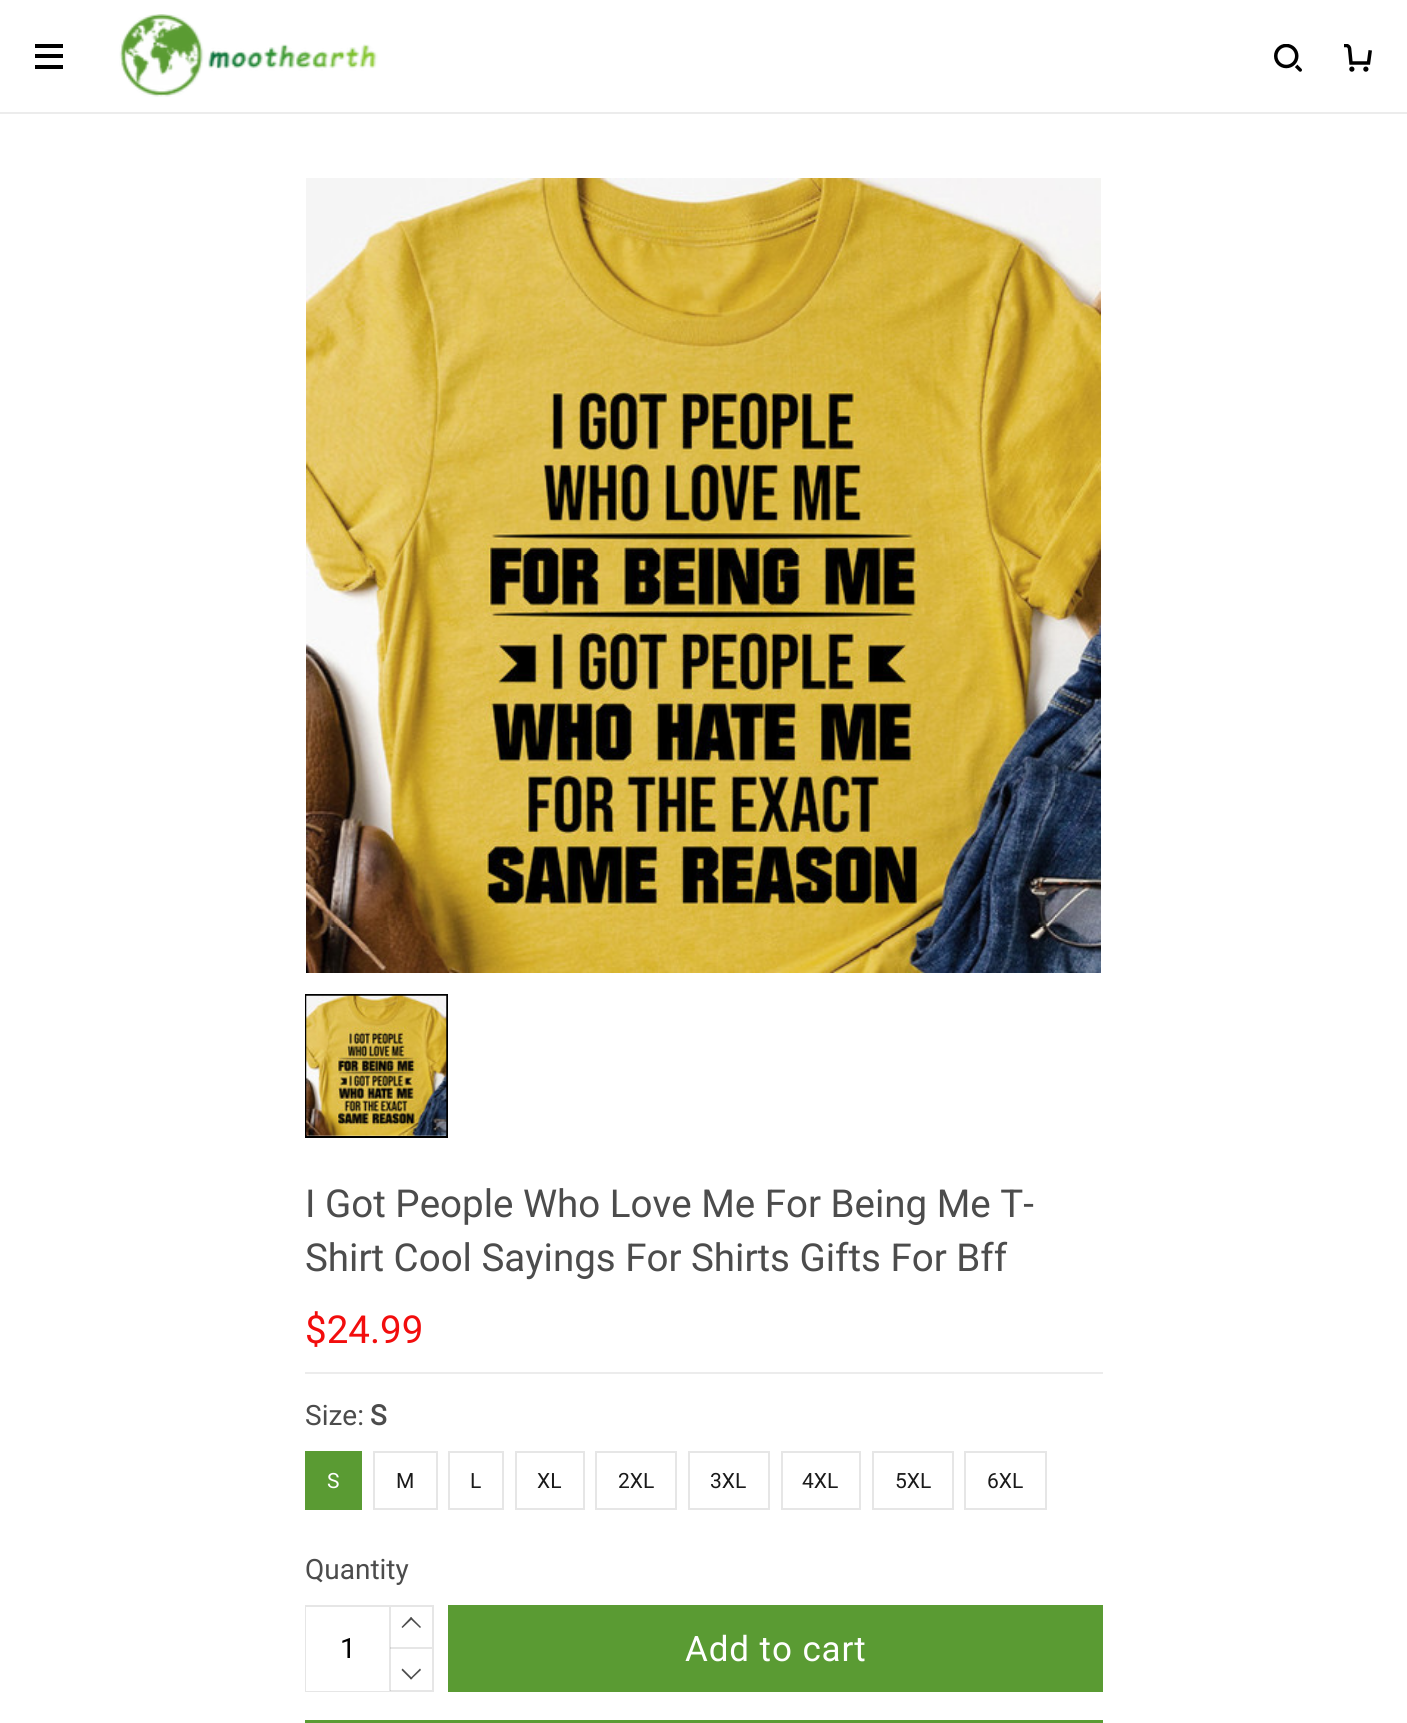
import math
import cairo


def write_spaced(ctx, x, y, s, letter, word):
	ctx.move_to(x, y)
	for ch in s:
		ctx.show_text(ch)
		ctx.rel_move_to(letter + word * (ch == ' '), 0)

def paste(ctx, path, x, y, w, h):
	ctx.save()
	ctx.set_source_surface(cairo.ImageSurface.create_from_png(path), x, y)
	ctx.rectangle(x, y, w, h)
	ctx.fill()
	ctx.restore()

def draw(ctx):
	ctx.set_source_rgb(1, 1, 1)
	ctx.paint()
	ctx.set_source_rgb(0.922, 0.922, 0.922)
	ctx.rectangle(0, 112, 1407, 2)
	ctx.fill()
	ctx.set_source_rgb(0, 0, 0)
	ctx.rectangle(35, 44, 28, 4)
	ctx.rectangle(35, 54, 28, 4)
	ctx.rectangle(35, 65, 28, 4)
	ctx.fill()
	paste(ctx, 'media/1.png', 119, 14, 259, 83)
	paste(ctx, 'media/2.png', 1274, 44, 28, 28)
	paste(ctx, 'media/3.png', 1344, 44, 28, 28)
	paste(ctx, 'media/4.png', 306, 178, 795, 795)
	ctx.rectangle(306, 995, 141, 142)
	ctx.stroke()
	paste(ctx, 'media/5.png', 306, 995, 141, 141)
	ctx.select_font_face('Roboto')
	ctx.set_font_size(38.5)
	ctx.set_source_rgb(0.298, 0.298, 0.298)
	ctx.move_to(305, 1217)
	ctx.show_text('I Got People Who Love Me For Being Me T-')
	ctx.move_to(305, 1271)
	ctx.show_text('Shirt Cool Sayings For Shirts Gifts For Bff')
	ctx.set_source_rgb(0.949, 0.051, 0.051)
	ctx.move_to(305, 1343)
	ctx.show_text('$24.99')
	ctx.set_source_rgb(0.922, 0.922, 0.922)
	ctx.rectangle(305, 1372, 798, 2)
	ctx.fill()
	ctx.set_font_size(28)
	ctx.set_source_rgb(0.298, 0.298, 0.298)
	ctx.move_to(305, 1425)
	ctx.show_text('Size:')
	ctx.select_font_face('Roboto', cairo.FONT_SLANT_NORMAL, cairo.FONT_WEIGHT_BOLD)
	ctx.move_to(370, 1425)
	ctx.show_text('S')
	ctx.set_source_rgb(0.353, 0.608, 0.2)
	ctx.rectangle(305, 1451, 57, 59)
	ctx.fill()
	ctx.select_font_face('Roboto')
	ctx.set_font_size(21)
	ctx.set_source_rgb(1, 1, 1)
	ctx.move_to(327, 1488)
	ctx.show_text('S')
	ctx.rectangle(374, 1452, 63, 57)
	ctx.set_source_rgb(0.902, 0.902, 0.902)
	ctx.stroke()
	ctx.set_source_rgb(0.102, 0.102, 0.102)
	ctx.move_to(396, 1488)
	ctx.show_text('M')
	ctx.rectangle(449, 1452, 54, 57)
	ctx.set_source_rgb(0.902, 0.902, 0.902)
	ctx.stroke()
	ctx.set_source_rgb(0.102, 0.102, 0.102)
	ctx.move_to(470, 1488)
	ctx.show_text('L')
	ctx.rectangle(516, 1452, 68, 57)
	ctx.set_source_rgb(0.902, 0.902, 0.902)
	ctx.stroke()
	ctx.set_source_rgb(0.102, 0.102, 0.102)
	ctx.move_to(537, 1488)
	ctx.show_text('XL')
	ctx.rectangle(596, 1452, 80, 57)
	ctx.set_source_rgb(0.902, 0.902, 0.902)
	ctx.stroke()
	ctx.set_source_rgb(0.102, 0.102, 0.102)
	ctx.move_to(618, 1488)
	ctx.show_text('2XL')
	ctx.rectangle(689, 1452, 80, 57)
	ctx.set_source_rgb(0.902, 0.902, 0.902)
	ctx.stroke()
	ctx.set_source_rgb(0.102, 0.102, 0.102)
	ctx.move_to(710, 1488)
	ctx.show_text('3XL')
	ctx.rectangle(782, 1452, 78, 57)
	ctx.set_source_rgb(0.902, 0.902, 0.902)
	ctx.stroke()
	ctx.set_source_rgb(0.102, 0.102, 0.102)
	ctx.move_to(802, 1488)
	ctx.show_text('4XL')
	ctx.rectangle(873, 1452, 80, 57)
	ctx.set_source_rgb(0.902, 0.902, 0.902)
	ctx.stroke()
	ctx.set_source_rgb(0.102, 0.102, 0.102)
	ctx.move_to(895, 1488)
	ctx.show_text('5XL')
	ctx.rectangle(965, 1452, 81, 57)
	ctx.set_source_rgb(0.902, 0.902, 0.902)
	ctx.stroke()
	ctx.set_source_rgb(0.102, 0.102, 0.102)
	ctx.move_to(987, 1488)
	ctx.show_text('6XL')
	ctx.set_font_size(28)
	ctx.set_source_rgb(0.298, 0.298, 0.298)
	ctx.move_to(305, 1579)
	ctx.show_text('Quantity')
	ctx.rectangle(306, 1606, 127, 85)
	ctx.set_source_rgb(0.902, 0.902, 0.902)
	ctx.stroke()
	ctx.set_source_rgb(1, 1, 1)
	ctx.rectangle(306, 1607, 84, 84)
	ctx.fill()
	ctx.set_source_rgba(0, 0, 0, 0.1)
	ctx.rectangle(389, 1607, 2, 84)
	ctx.fill()
	ctx.set_source_rgb(0, 0, 0)
	ctx.move_to(340, 1658)
	ctx.show_text('1')
	ctx.set_source_rgba(0, 0, 0, 0.1)
	ctx.rectangle(390, 1647, 42, 2)
	ctx.fill()
	ctx.set_source_rgb(0.298, 0.298, 0.298)
	ctx.new_path()
	ctx.move_to(401.5, 1627)
	ctx.line_to(411, 1617)
	ctx.line_to(412.5, 1618.5)
	ctx.line_to(402.5, 1628)
	ctx.close_path()
	ctx.fill()
	ctx.new_path()
	ctx.move_to(410, 1618.5)
	ctx.line_to(411, 1617)
	ctx.line_to(421, 1627)
	ctx.line_to(420, 1628)
	ctx.close_path()
	ctx.move_to(421, 1670)
	ctx.line_to(411, 1679.5)
	ctx.line_to(410, 1678.5)
	ctx.line_to(420, 1668.5)
	ctx.close_path()
	ctx.fill()
	ctx.new_path()
	ctx.move_to(412.5, 1678.5)
	ctx.line_to(411, 1679.5)
	ctx.line_to(401.5, 1670)
	ctx.line_to(402.5, 1668.5)
	ctx.close_path()
	ctx.fill()
	ctx.set_source_rgb(0.353, 0.608, 0.2)
	ctx.rectangle(448, 1605, 655, 87)
	ctx.fill()
	ctx.set_font_size(35)
	ctx.set_source_rgb(1, 1, 1)
	write_spaced(ctx, 685, 1661, 'Add to cart', 0.9, 0)
	ctx.set_source_rgb(0.353, 0.608, 0.2)
	ctx.rectangle(305, 1720, 798, 3)
	ctx.fill()


surface = cairo.ImageSurface(cairo.FORMAT_RGB24, 1407, 1723)
ctx = cairo.Context(surface)
options = cairo.FontOptions()
options.set_hint_metrics(cairo.HINT_METRICS_OFF)
options.set_hint_style(cairo.HINT_STYLE_NONE)
ctx.set_font_options(options)
ctx.set_miter_limit(4)
draw(ctx)
surface.write_to_png('image.png')
